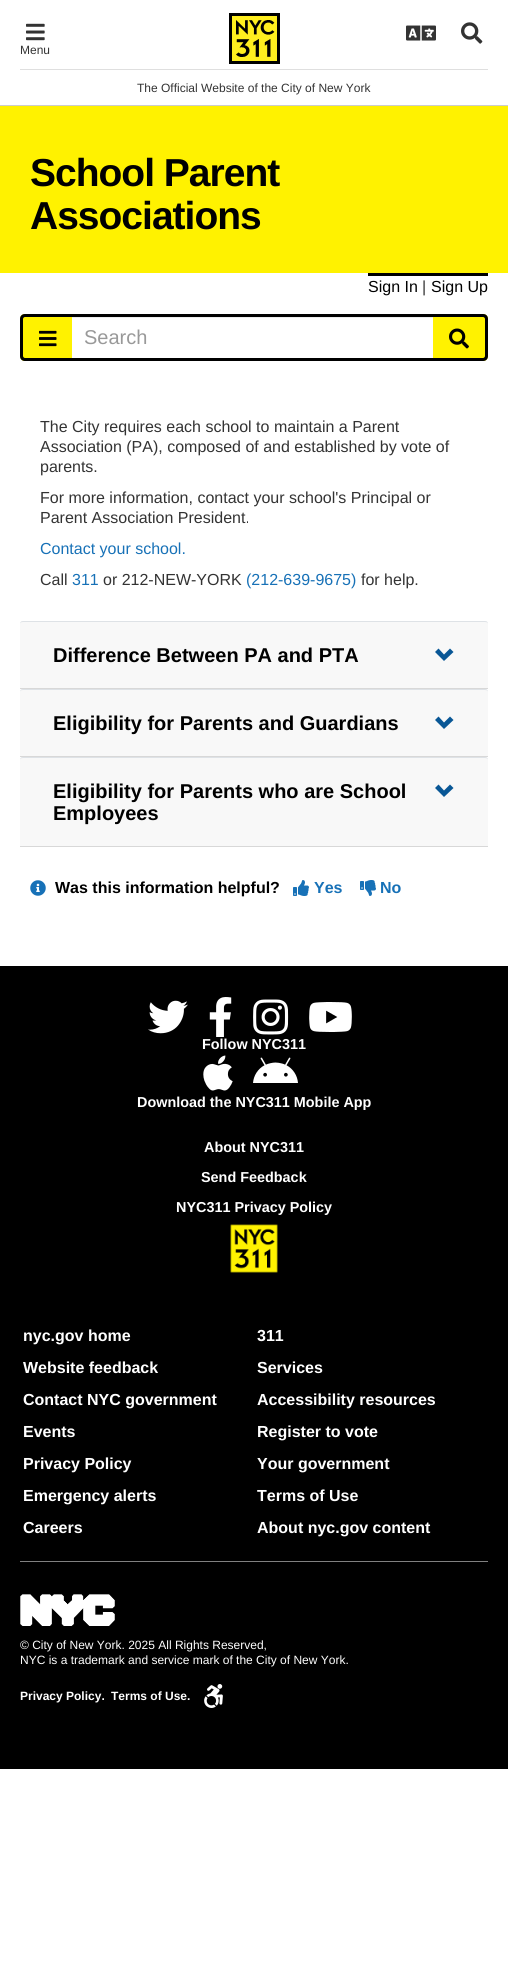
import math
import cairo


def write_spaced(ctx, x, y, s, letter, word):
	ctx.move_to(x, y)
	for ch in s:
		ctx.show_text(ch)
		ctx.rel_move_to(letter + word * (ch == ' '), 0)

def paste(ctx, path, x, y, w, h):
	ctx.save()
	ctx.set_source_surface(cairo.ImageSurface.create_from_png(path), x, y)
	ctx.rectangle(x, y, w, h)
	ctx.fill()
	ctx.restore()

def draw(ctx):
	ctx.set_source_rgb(1, 1, 1)
	ctx.paint()
	paste(ctx, 'media/1.png', 229, 13, 51, 51)
	paste(ctx, 'media/2.png', 406, 25, 30, 16)
	paste(ctx, 'media/3.png', 461, 22, 22, 22)
	paste(ctx, 'media/4.png', 26, 23, 19, 18)
	ctx.select_font_face('Liberation Sans')
	ctx.set_font_size(12)
	ctx.set_source_rgb(0.2, 0.2, 0.2)
	ctx.move_to(20, 54)
	ctx.show_text('Menu')
	ctx.set_source_rgb(0.875, 0.875, 0.875)
	ctx.rectangle(20, 69, 468, 1)
	ctx.fill()
	ctx.set_source_rgb(0.2, 0.2, 0.2)
	ctx.move_to(137, 92)
	ctx.show_text('The Official Website of the City of New York')
	ctx.set_source_rgb(0.8, 0.8, 0.8)
	ctx.rectangle(0, 105, 508, 1)
	ctx.fill()
	ctx.set_source_rgb(1, 0.949, 0)
	ctx.rectangle(0, 106, 508, 167)
	ctx.fill()
	ctx.select_font_face('Liberation Sans', cairo.FONT_SLANT_NORMAL, cairo.FONT_WEIGHT_BOLD)
	ctx.set_font_size(39)
	ctx.set_source_rgb(0, 0, 0)
	write_spaced(ctx, 30, 186, 'School Parent', -1, 0)
	write_spaced(ctx, 30, 229, 'Associations', -1, 0)
	ctx.rectangle(368, 273, 120, 3)
	ctx.fill()
	ctx.select_font_face('Liberation Sans')
	ctx.set_font_size(16)
	ctx.move_to(368, 292)
	ctx.show_text('Sign In')
	ctx.set_source_rgb(0.2, 0.2, 0.2)
	ctx.move_to(422, 292)
	ctx.show_text('|')
	ctx.set_source_rgb(0, 0, 0)
	ctx.move_to(431, 292)
	ctx.show_text('Sign Up')
	ctx.set_source_rgb(1, 0.949, 0)
	ctx.new_path()
	ctx.move_to(25, 314)
	ctx.line_to(73, 314)
	ctx.line_to(73, 361)
	ctx.line_to(25, 361)
	ctx.curve_to(22, 361, 20, 359, 20, 356)
	ctx.line_to(20, 319)
	ctx.curve_to(20, 316, 22, 314, 25, 314)
	ctx.close_path()
	ctx.fill()
	ctx.set_source_rgb(0, 0, 0)
	ctx.set_fill_rule(cairo.FILL_RULE_EVEN_ODD)
	ctx.new_path()
	ctx.move_to(25, 314)
	ctx.line_to(73, 314)
	ctx.line_to(73, 361)
	ctx.line_to(25, 361)
	ctx.curve_to(22, 361, 20, 359, 20, 356)
	ctx.line_to(20, 319)
	ctx.curve_to(20, 316, 22, 314, 25, 314)
	ctx.close_path()
	ctx.move_to(25, 317)
	ctx.line_to(73, 317)
	ctx.line_to(73, 358)
	ctx.line_to(25, 358)
	ctx.curve_to(24, 358, 23, 357, 23, 356)
	ctx.line_to(23, 319)
	ctx.curve_to(23, 318, 24, 317, 25, 317)
	ctx.close_path()
	ctx.fill()
	paste(ctx, 'media/5.png', 39, 330, 18, 17)
	ctx.set_source_rgb(1, 1, 1)
	ctx.rectangle(72, 318, 1, 40)
	ctx.fill()
	ctx.set_source_rgb(0.925, 0.925, 0.925)
	ctx.rectangle(72, 317, 362, 1)
	ctx.fill()
	ctx.set_source_rgb(0, 0, 0)
	ctx.rectangle(72, 314, 362, 3)
	ctx.rectangle(72, 358, 362, 3)
	ctx.fill()
	ctx.set_font_size(20)
	ctx.set_source_rgb(0.6, 0.6, 0.6)
	ctx.move_to(84, 344)
	ctx.show_text('Search')
	ctx.set_source_rgb(1, 0.949, 0)
	ctx.new_path()
	ctx.move_to(433, 314)
	ctx.line_to(483, 314)
	ctx.curve_to(486, 314, 488, 316, 488, 319)
	ctx.line_to(488, 356)
	ctx.curve_to(488, 359, 486, 361, 483, 361)
	ctx.line_to(433, 361)
	ctx.close_path()
	ctx.fill()
	ctx.set_source_rgb(0, 0, 0)
	ctx.new_path()
	ctx.move_to(433, 314)
	ctx.line_to(483, 314)
	ctx.curve_to(486, 314, 488, 316, 488, 319)
	ctx.line_to(488, 356)
	ctx.curve_to(488, 359, 486, 361, 483, 361)
	ctx.line_to(433, 361)
	ctx.close_path()
	ctx.move_to(433, 317)
	ctx.line_to(483, 317)
	ctx.curve_to(484, 317, 485, 318, 485, 319)
	ctx.line_to(485, 356)
	ctx.curve_to(485, 357, 484, 358, 483, 358)
	ctx.line_to(433, 358)
	ctx.close_path()
	ctx.fill()
	paste(ctx, 'media/6.png', 449, 328, 20, 21)
	ctx.set_font_size(16)
	ctx.set_source_rgb(0.2, 0.2, 0.2)
	for x, y, s in [
		(40, 432, 'The City requires each school to maintain a Parent'),
		(40, 452, 'Association (PA), composed of and established by vote of'),
		(40, 472, 'parents.'),
		(40, 503, 'For more information, contact your school\'s Principal or'),
		(40, 523, 'Parent Association President.'),
	]:
		ctx.move_to(x, y)
		ctx.show_text(s)
	ctx.set_source_rgb(0.09, 0.443, 0.718)
	ctx.move_to(40, 554)
	ctx.show_text('Contact your school.')
	ctx.set_source_rgb(0.2, 0.2, 0.2)
	ctx.move_to(40, 585)
	ctx.show_text('Call')
	ctx.set_source_rgb(0.09, 0.443, 0.718)
	ctx.move_to(72, 585)
	ctx.show_text('311')
	ctx.set_source_rgb(0.2, 0.2, 0.2)
	ctx.move_to(103, 585)
	ctx.show_text('or 212-NEW-YORK')
	ctx.set_source_rgb(0.09, 0.443, 0.718)
	ctx.move_to(246, 585)
	ctx.show_text('(212-639-9675)')
	ctx.set_source_rgb(0.2, 0.2, 0.2)
	ctx.move_to(361, 585)
	ctx.show_text('for help.')
	ctx.set_source_rgb(0.969, 0.969, 0.969)
	ctx.new_path()
	ctx.move_to(23, 621)
	ctx.line_to(485, 621)
	ctx.curve_to(486.5, 621, 488, 622.5, 488, 624)
	ctx.line_to(488, 689)
	ctx.line_to(20, 689)
	ctx.line_to(20, 624)
	ctx.curve_to(20, 622.5, 21.5, 621, 23, 621)
	ctx.close_path()
	ctx.fill()
	ctx.set_source_rgb(0.871, 0.886, 0.902)
	ctx.set_fill_rule(cairo.FILL_RULE_WINDING)
	ctx.new_path()
	ctx.move_to(23, 621)
	ctx.curve_to(21, 621, 20, 622, 20, 624)
	ctx.curve_to(20, 623, 21, 622, 23, 622)
	ctx.line_to(485, 622)
	ctx.curve_to(487, 622, 488, 623, 488, 624)
	ctx.curve_to(488, 622, 487, 621, 485, 621)
	ctx.close_path()
	ctx.fill()
	ctx.set_source_rgb(0.847, 0.847, 0.847)
	ctx.rectangle(20, 688, 468, 1)
	ctx.fill()
	ctx.select_font_face('Liberation Sans', cairo.FONT_SLANT_NORMAL, cairo.FONT_WEIGHT_BOLD)
	ctx.set_font_size(20)
	ctx.set_source_rgb(0, 0, 0)
	ctx.move_to(53, 662)
	ctx.show_text('Difference Between PA and PTA')
	ctx.set_source_rgb(0.039, 0.341, 0.588)
	ctx.new_path()
	ctx.move_to(453.5, 652)
	ctx.line_to(444, 661)
	ctx.line_to(435, 652)
	ctx.line_to(438.5, 648.5)
	ctx.line_to(444, 654.5)
	ctx.line_to(450, 648.5)
	ctx.close_path()
	ctx.fill()
	ctx.set_source_rgb(0.969, 0.969, 0.969)
	ctx.new_path()
	ctx.move_to(23, 689)
	ctx.line_to(485, 689)
	ctx.curve_to(486.5, 689, 488, 690.5, 488, 692)
	ctx.line_to(488, 757)
	ctx.line_to(20, 757)
	ctx.line_to(20, 692)
	ctx.curve_to(20, 690.5, 21.5, 689, 23, 689)
	ctx.close_path()
	ctx.fill()
	ctx.set_source_rgb(0.871, 0.886, 0.902)
	ctx.new_path()
	ctx.move_to(23, 689)
	ctx.curve_to(21, 689, 20, 690, 20, 692)
	ctx.curve_to(20, 691, 21, 690, 23, 690)
	ctx.line_to(485, 690)
	ctx.curve_to(487, 690, 488, 691, 488, 692)
	ctx.curve_to(488, 690, 487, 689, 485, 689)
	ctx.close_path()
	ctx.fill()
	ctx.set_source_rgb(0.847, 0.847, 0.847)
	ctx.rectangle(20, 756, 468, 1)
	ctx.fill()
	ctx.set_source_rgb(0, 0, 0)
	ctx.move_to(53, 730)
	ctx.show_text('Eligibility for Parents and Guardians')
	ctx.set_source_rgb(0.039, 0.341, 0.588)
	ctx.new_path()
	ctx.move_to(453.5, 720)
	ctx.line_to(444, 729)
	ctx.line_to(435, 720)
	ctx.line_to(438.5, 716.5)
	ctx.line_to(444, 722.5)
	ctx.line_to(450, 716.5)
	ctx.close_path()
	ctx.fill()
	ctx.set_source_rgb(0.969, 0.969, 0.969)
	ctx.new_path()
	ctx.move_to(23, 757)
	ctx.line_to(485, 757)
	ctx.curve_to(486.5, 757, 488, 758.5, 488, 760)
	ctx.line_to(488, 847)
	ctx.line_to(20, 847)
	ctx.line_to(20, 760)
	ctx.curve_to(20, 758.5, 21.5, 757, 23, 757)
	ctx.close_path()
	ctx.fill()
	ctx.set_source_rgb(0.871, 0.886, 0.902)
	ctx.new_path()
	ctx.move_to(23, 757)
	ctx.curve_to(21, 757, 20, 758, 20, 760)
	ctx.curve_to(20, 759, 21, 758, 23, 758)
	ctx.line_to(485, 758)
	ctx.curve_to(487, 758, 488, 759, 488, 760)
	ctx.curve_to(488, 758, 487, 757, 485, 757)
	ctx.close_path()
	ctx.fill()
	ctx.set_source_rgb(0.847, 0.847, 0.847)
	ctx.rectangle(20, 846, 468, 1)
	ctx.fill()
	ctx.set_source_rgb(0, 0, 0)
	ctx.move_to(53, 798)
	ctx.show_text('Eligibility for Parents who are School')
	ctx.move_to(53, 820)
	ctx.show_text('Employees')
	ctx.set_source_rgb(0.039, 0.341, 0.588)
	ctx.new_path()
	ctx.move_to(453.5, 788)
	ctx.line_to(444, 797)
	ctx.line_to(435, 788)
	ctx.line_to(438.5, 784.5)
	ctx.line_to(444, 790.5)
	ctx.line_to(450, 784.5)
	ctx.close_path()
	ctx.fill()
	paste(ctx, 'media/7.png', 30, 880, 16, 16)
	ctx.set_font_size(16)
	ctx.set_source_rgb(0, 0, 0)
	ctx.move_to(55, 893)
	ctx.show_text('Was this information helpful?')
	paste(ctx, 'media/8.png', 293, 880, 16, 16)
	ctx.set_source_rgb(0.09, 0.443, 0.718)
	ctx.move_to(314, 893)
	ctx.show_text('Yes')
	paste(ctx, 'media/9.png', 360, 880, 16, 16)
	ctx.move_to(380, 893)
	ctx.show_text('No')
	ctx.set_source_rgb(0, 0, 0)
	ctx.rectangle(0, 966, 508, 803)
	ctx.fill()
	paste(ctx, 'media/10.png', 148, 1000, 40, 34)
	paste(ctx, 'media/11.png', 209, 997, 23, 40)
	paste(ctx, 'media/12.png', 253, 999, 36, 36)
	paste(ctx, 'media/13.png', 309, 1002, 43, 30)
	ctx.set_font_size(14.4)
	ctx.set_source_rgb(1, 1, 1)
	ctx.move_to(202, 1049)
	ctx.show_text('Follow NYC311')
	paste(ctx, 'media/14.png', 203, 1055, 30, 36)
	paste(ctx, 'media/15.png', 253, 1057, 45, 26)
	for x, y, s in [
		(137, 1107, 'Download the NYC311 Mobile App'),
		(204, 1152, 'About NYC311'),
		(201, 1182, 'Send Feedback'),
		(176, 1212, 'NYC311 Privacy Policy'),
	]:
		ctx.move_to(x, y)
		ctx.show_text(s)
	paste(ctx, 'media/16.png', 230, 1224, 48, 49)
	ctx.set_source_rgb(0.502, 0.502, 0.502)
	ctx.rectangle(20, 1561, 468, 1)
	ctx.fill()
	ctx.set_font_size(16)
	ctx.set_source_rgb(1, 1, 1)
	for x, y, s in [
		(23, 1341, 'nyc.gov home'),
		(257, 1341, '311'),
		(23, 1373, 'Website feedback'),
		(257, 1373, 'Services'),
		(23, 1405, 'Contact NYC government'),
		(257, 1405, 'Accessibility resources'),
		(23, 1437, 'Events'),
		(257, 1437, 'Register to vote'),
		(23, 1469, 'Privacy Policy'),
		(257, 1469, 'Your government'),
		(23, 1501, 'Emergency alerts'),
		(257, 1501, 'Terms of Use'),
		(23, 1533, 'Careers'),
		(257, 1533, 'About nyc.gov content'),
	]:
		ctx.move_to(x, y)
		ctx.show_text(s)
	paste(ctx, 'media/17.png', 20, 1594, 95, 32)
	ctx.select_font_face('Liberation Sans')
	ctx.set_font_size(12)
	ctx.move_to(20, 1649)
	ctx.show_text('© City of New York. 2025 All Rights Reserved,')
	ctx.move_to(20, 1664)
	ctx.show_text('NYC is a trademark and service mark of the City of New York.')
	ctx.select_font_face('Liberation Sans', cairo.FONT_SLANT_NORMAL, cairo.FONT_WEIGHT_BOLD)
	ctx.move_to(20, 1700)
	ctx.show_text('Privacy Policy.')
	ctx.move_to(111, 1700)
	ctx.show_text('Terms of Use.')
	paste(ctx, 'media/18.png', 204, 1684, 19, 24)


surface = cairo.ImageSurface(cairo.FORMAT_RGB24, 508, 1988)
ctx = cairo.Context(surface)
options = cairo.FontOptions()
options.set_hint_metrics(cairo.HINT_METRICS_OFF)
options.set_hint_style(cairo.HINT_STYLE_NONE)
ctx.set_font_options(options)
ctx.set_miter_limit(4)
draw(ctx)
surface.write_to_png('image.png')
